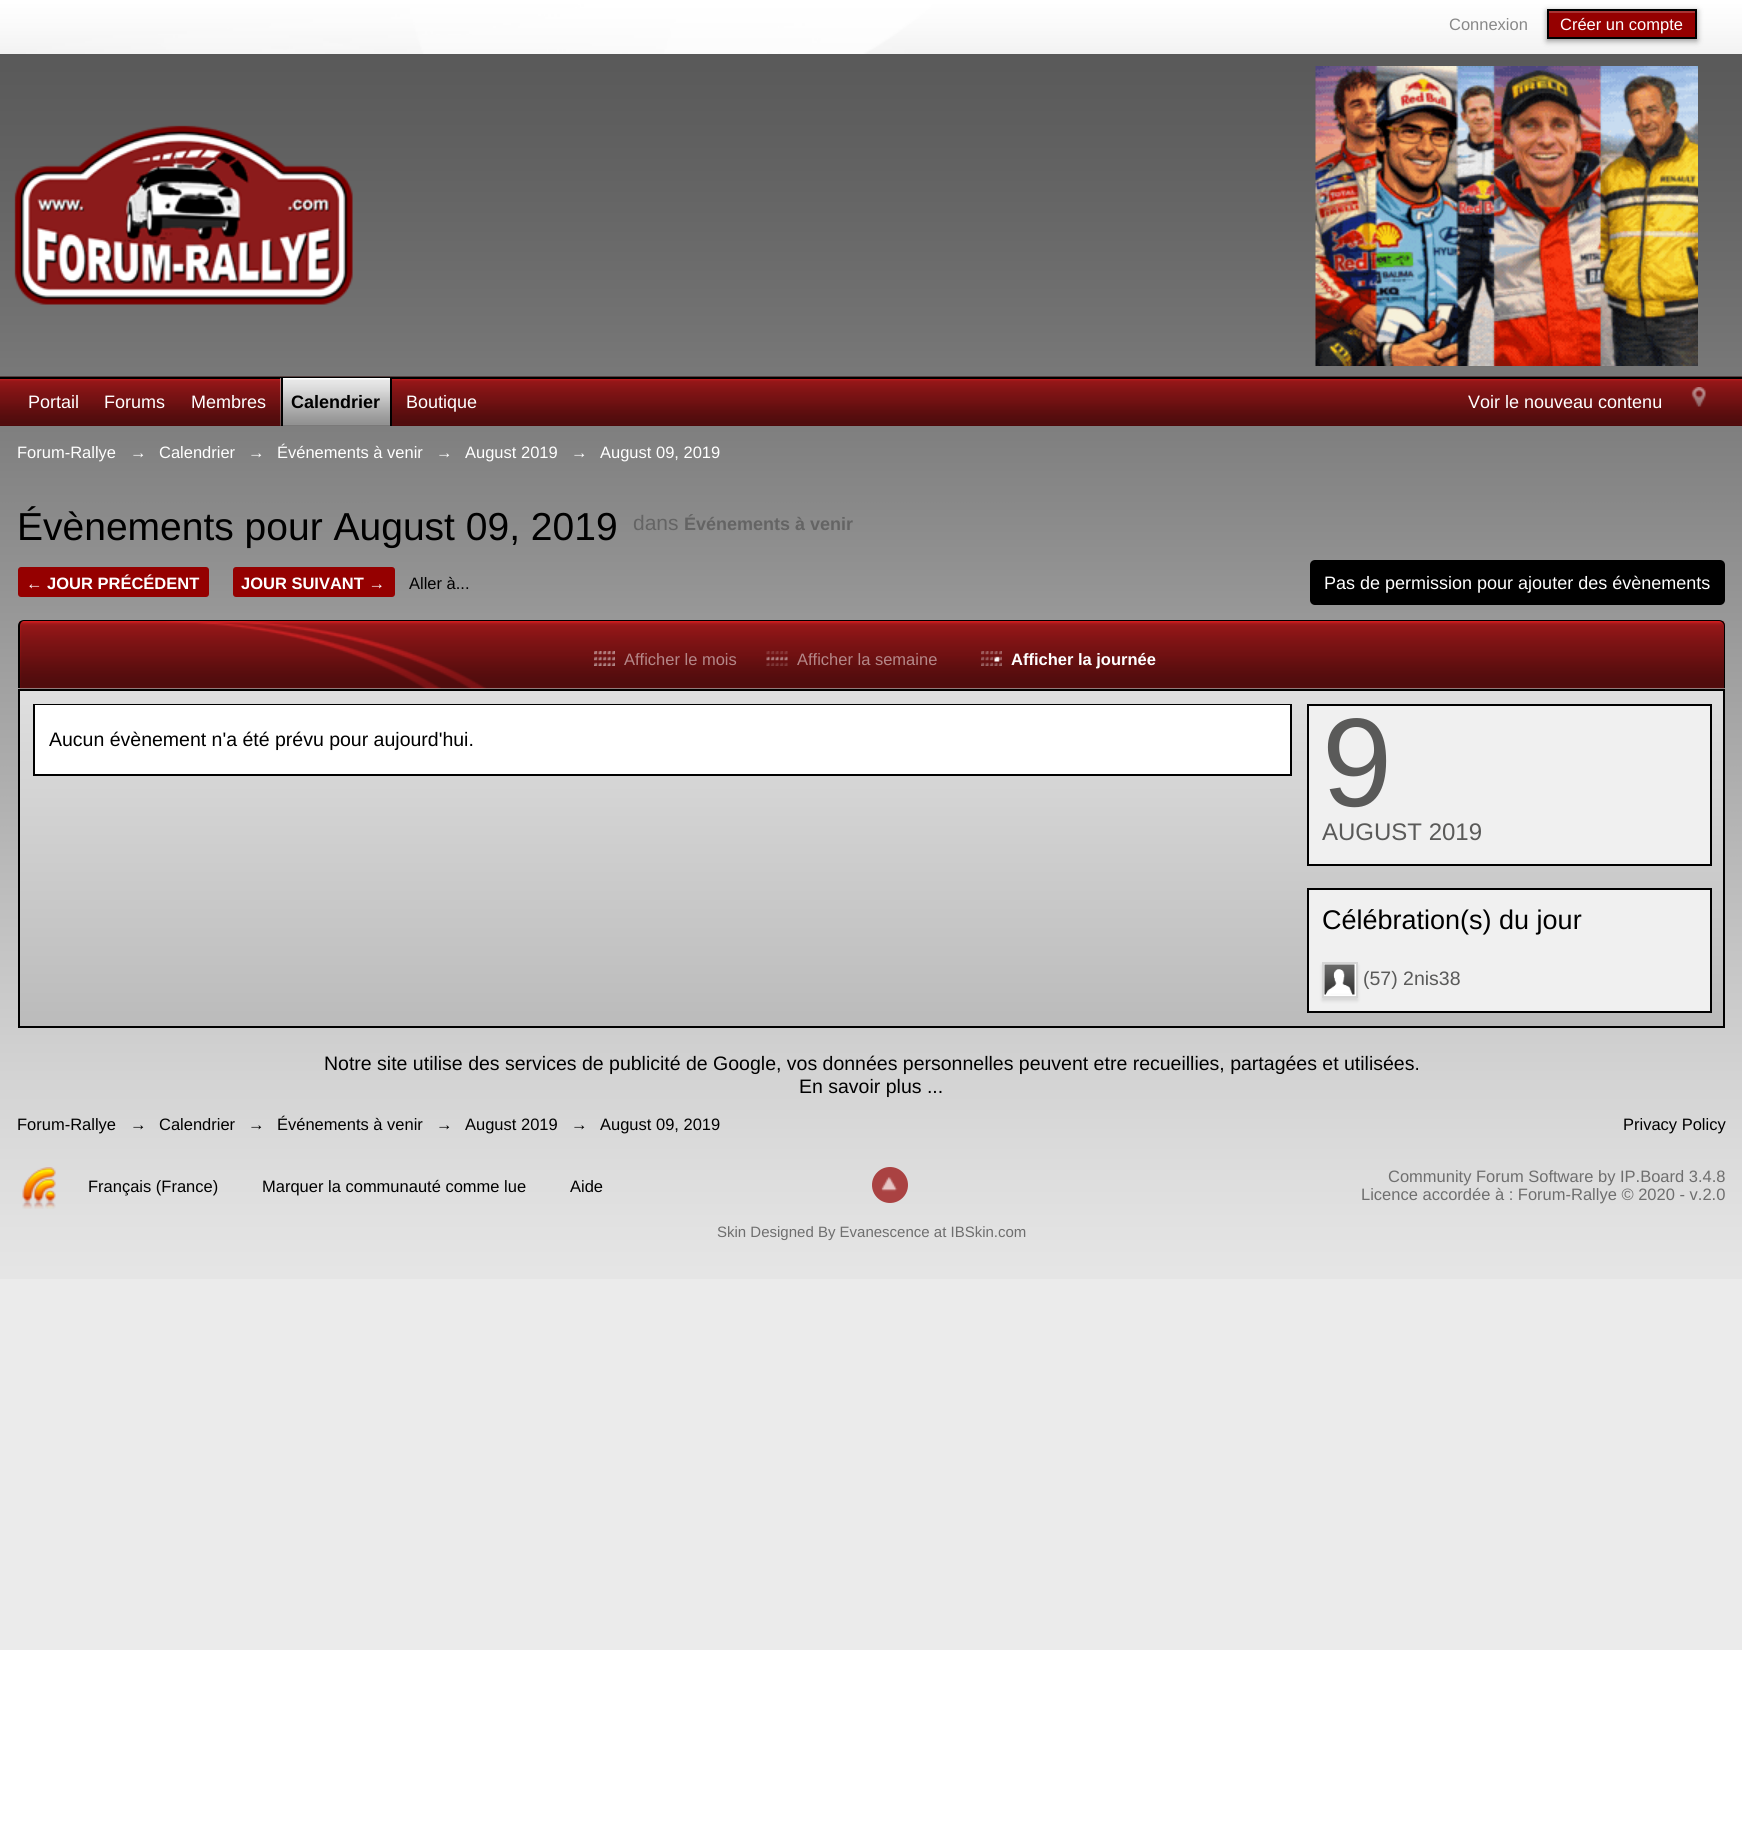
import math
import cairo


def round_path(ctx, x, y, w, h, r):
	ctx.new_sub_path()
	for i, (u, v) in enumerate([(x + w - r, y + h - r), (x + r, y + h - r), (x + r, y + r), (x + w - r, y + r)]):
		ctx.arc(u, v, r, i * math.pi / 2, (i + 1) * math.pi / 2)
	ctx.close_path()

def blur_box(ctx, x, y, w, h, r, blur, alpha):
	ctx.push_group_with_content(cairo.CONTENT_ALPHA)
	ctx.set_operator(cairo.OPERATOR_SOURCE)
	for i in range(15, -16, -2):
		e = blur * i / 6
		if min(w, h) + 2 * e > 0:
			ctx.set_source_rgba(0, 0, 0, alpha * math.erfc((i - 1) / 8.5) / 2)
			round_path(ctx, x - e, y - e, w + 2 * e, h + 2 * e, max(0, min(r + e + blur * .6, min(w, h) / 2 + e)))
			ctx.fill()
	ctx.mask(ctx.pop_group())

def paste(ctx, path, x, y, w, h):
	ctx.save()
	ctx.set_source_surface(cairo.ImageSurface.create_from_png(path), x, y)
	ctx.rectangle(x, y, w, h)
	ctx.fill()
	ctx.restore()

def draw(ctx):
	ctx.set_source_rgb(1, 1, 1)
	ctx.paint()
	ctx.set_source_rgb(0.918, 0.918, 0.918)
	ctx.rectangle(0, 1279, 1742, 371)
	ctx.fill()
	paste(ctx, 'media/1.png', 0, 54, 1742, 1225)
	paste(ctx, 'media/2.png', 0, 0, 1742, 54)
	ctx.select_font_face('Liberation Sans')
	ctx.set_font_size(16.5)
	ctx.set_source_rgb(0.533, 0.533, 0.533)
	ctx.move_to(1449, 30)
	ctx.show_text('Connexion')
	ctx.set_source_rgb(0, 0, 0)
	blur_box(ctx, 1547, 11, 150, 30, 0, 3, 0.4)
	ctx.set_source_rgb(0.584, 0, 0)
	ctx.rectangle(1549, 13, 146, 24)
	ctx.fill()
	ctx.set_source_rgb(0.667, 0.2, 0.2)
	ctx.rectangle(1548, 11, 147, 2)
	ctx.fill()
	ctx.rectangle(1548, 10, 148, 28)
	ctx.set_source_rgb(0, 0, 0)
	ctx.stroke()
	ctx.set_source_rgb(1, 1, 1)
	ctx.move_to(1560, 30)
	ctx.show_text('Créer un compte')
	paste(ctx, 'media/3.png', 14, 125, 339, 180)
	paste(ctx, 'media/4.png', 1315, 66, 383, 300)
	paste(ctx, 'media/5.png', 0, 376, 1742, 50)
	ctx.set_source_rgb(0, 0, 0)
	ctx.rectangle(0, 377, 1742, 2)
	ctx.fill()
	ctx.set_font_size(18)
	ctx.set_source_rgb(1, 1, 1)
	for x, y, s in [
		(28, 408, 'Portail'),
		(104, 408, 'Forums'),
		(191, 408, 'Membres'),
	]:
		ctx.move_to(x, y)
		ctx.show_text(s)
	paste(ctx, 'media/6.png', 280, 378, 110, 48)
	ctx.set_source_rgb(0, 0, 0)
	ctx.rectangle(390, 378, 2, 48)
	ctx.fill()
	ctx.rectangle(281, 378, 2, 48)
	ctx.fill()
	ctx.select_font_face('Liberation Sans', cairo.FONT_SLANT_NORMAL, cairo.FONT_WEIGHT_BOLD)
	ctx.move_to(291, 408)
	ctx.show_text('Calendrier')
	ctx.select_font_face('Liberation Sans')
	ctx.set_source_rgb(1, 1, 1)
	ctx.move_to(406, 408)
	ctx.show_text('Boutique')
	ctx.move_to(1468, 408)
	ctx.show_text('Voir le nouveau contenu')
	paste(ctx, 'media/7.png', 1691, 387, 15, 20)
	ctx.set_font_size(16.5)
	for x, y, s in [
		(17, 458, 'Forum-Rallye'),
		(130, 458, '→'),
		(159, 458, 'Calendrier'),
		(248, 458, '→'),
		(277, 458, 'Événements à venir'),
		(436, 458, '→'),
		(465, 458, 'August 2019'),
		(571, 458, '→'),
		(600, 458, 'August 09, 2019'),
	]:
		ctx.move_to(x, y)
		ctx.show_text(s)
	ctx.set_font_size(39)
	ctx.set_source_rgb(0, 0, 0)
	ctx.move_to(17, 540)
	ctx.show_text('Évènements pour August 09, 2019')
	ctx.set_font_size(21)
	ctx.set_source_rgb(0.392, 0.392, 0.392)
	ctx.move_to(633, 530)
	ctx.show_text('dans')
	ctx.select_font_face('Liberation Sans', cairo.FONT_SLANT_NORMAL, cairo.FONT_WEIGHT_BOLD)
	ctx.set_font_size(18)
	ctx.move_to(684, 530)
	ctx.show_text('Événements à venir')
	ctx.set_source_rgb(0.584, 0, 0)
	round_path(ctx, 18, 567, 191, 30, 3)
	ctx.fill()
	ctx.set_font_size(16.5)
	ctx.set_source_rgb(1, 1, 1)
	ctx.move_to(26, 589)
	ctx.show_text('← JOUR PRÉCÉDENT')
	ctx.set_source_rgb(0.584, 0, 0)
	round_path(ctx, 233, 567, 162, 30, 3)
	ctx.fill()
	ctx.set_source_rgb(1, 1, 1)
	ctx.move_to(241, 589)
	ctx.show_text('JOUR SUIVANT →')
	ctx.select_font_face('Liberation Sans')
	ctx.set_source_rgb(0, 0, 0)
	ctx.move_to(409, 589)
	ctx.show_text('Aller à...')
	round_path(ctx, 1310, 560, 415, 45, 5)
	ctx.fill()
	ctx.set_font_size(18)
	ctx.set_source_rgb(1, 1, 1)
	ctx.move_to(1324, 589)
	ctx.show_text('Pas de permission pour ajouter des évènements')
	paste(ctx, 'media/8.png', 19, 621, 1706, 68)
	ctx.set_source_rgb(0, 0, 0)
	ctx.set_fill_rule(cairo.FILL_RULE_EVEN_ODD)
	ctx.new_path()
	ctx.move_to(24, 620)
	ctx.line_to(1719, 620)
	ctx.curve_to(1722, 620, 1725, 622, 1725, 626)
	ctx.line_to(1725, 688)
	ctx.line_to(18, 688)
	ctx.line_to(18, 626)
	ctx.curve_to(18, 622, 21, 620, 24, 620)
	ctx.close_path()
	ctx.move_to(24, 621)
	ctx.line_to(1719, 621)
	ctx.curve_to(1721, 621, 1724, 623, 1724, 626)
	ctx.line_to(1724, 688)
	ctx.line_to(20, 688)
	ctx.line_to(20, 626)
	ctx.curve_to(20, 623, 22, 621, 24, 621)
	ctx.close_path()
	ctx.fill()
	paste(ctx, 'media/9.png', 594, 651, 21, 15)
	ctx.set_font_size(16.5)
	ctx.set_source_rgb(0.706, 0.529, 0.533)
	ctx.move_to(624, 665)
	ctx.show_text('Afficher le mois')
	paste(ctx, 'media/10.png', 766, 651, 22, 15)
	ctx.move_to(797, 665)
	ctx.show_text('Afficher la semaine')
	paste(ctx, 'media/11.png', 981, 651, 21, 15)
	ctx.select_font_face('Liberation Sans', cairo.FONT_SLANT_NORMAL, cairo.FONT_WEIGHT_BOLD)
	ctx.set_source_rgb(1, 1, 1)
	ctx.move_to(1011, 665)
	ctx.show_text('Afficher la journée')
	gradient = cairo.LinearGradient(20, 690, 20, 1026)
	gradient.add_color_stop_rgba(0, 0.875, 0.875, 0.875, 1)
	gradient.add_color_stop_rgba(1, 0.733, 0.733, 0.733, 1)
	ctx.set_source(gradient)
	ctx.rectangle(20, 691, 1703, 335)
	ctx.fill()
	ctx.rectangle(19, 690, 1705, 337)
	ctx.set_source_rgb(0, 0, 0)
	ctx.stroke()
	ctx.rectangle(34, 705, 1257, 70)
	ctx.stroke()
	ctx.set_source_rgb(1, 1, 1)
	ctx.rectangle(35, 705, 1255, 69)
	ctx.fill()
	ctx.select_font_face('Liberation Sans')
	ctx.set_font_size(19.5)
	ctx.set_source_rgb(0, 0, 0)
	ctx.move_to(49, 746)
	ctx.show_text('Aucun évènement n\'a été prévu pour aujourd\'hui.')
	ctx.set_source_rgb(0.941, 0.941, 0.941)
	ctx.rectangle(1308, 705, 403, 160)
	ctx.fill_preserve()
	ctx.set_source_rgb(0, 0, 0)
	ctx.stroke()
	ctx.set_font_size(126)
	ctx.set_source_rgb(0.353, 0.353, 0.349)
	ctx.move_to(1322, 806)
	ctx.show_text('9')
	ctx.set_font_size(24)
	ctx.move_to(1322, 840)
	ctx.show_text('AUGUST 2019')
	ctx.set_source_rgb(0.941, 0.941, 0.941)
	ctx.rectangle(1308, 889, 403, 123)
	ctx.fill_preserve()
	ctx.set_source_rgb(0, 0, 0)
	ctx.stroke()
	ctx.set_font_size(27)
	ctx.move_to(1322, 929)
	ctx.show_text('Célébration(s) du jour')
	ctx.set_source_rgb(0, 0, 0)
	blur_box(ctx, 1322, 965, 36, 36, 0, 1.5, 0.1)
	ctx.set_source_rgb(1, 1, 1)
	ctx.rectangle(1323, 963, 34, 34)
	ctx.fill_preserve()
	ctx.set_source_rgb(0.835, 0.835, 0.835)
	ctx.stroke()
	paste(ctx, 'media/12.png', 1324, 964, 31, 31)
	ctx.set_font_size(19.5)
	ctx.set_source_rgb(0.353, 0.353, 0.349)
	ctx.move_to(1363, 985)
	ctx.show_text('(57) 2nis38')
	ctx.set_source_rgb(0, 0, 0)
	ctx.move_to(324, 1070)
	ctx.show_text('Notre site utilise des services de publicité de Google, vos données personnelles peuvent etre recueillies, partagées et utilisées.')
	ctx.move_to(799, 1093)
	ctx.show_text('En savoir plus ...')
	ctx.set_font_size(16.5)
	for x, y, s in [
		(17, 1130, 'Forum-Rallye'),
		(130, 1130, '→'),
		(159, 1130, 'Calendrier'),
		(248, 1130, '→'),
		(277, 1130, 'Événements à venir'),
		(436, 1130, '→'),
		(465, 1130, 'August 2019'),
		(571, 1130, '→'),
		(600, 1130, 'August 09, 2019'),
		(1623, 1130, 'Privacy Policy'),
	]:
		ctx.move_to(x, y)
		ctx.show_text(s)
	paste(ctx, 'media/13.png', 22, 1167, 34, 42)
	for x, y, s in [
		(88, 1192, 'Français (France)'),
		(262, 1192, 'Marquer la communauté comme lue'),
		(570, 1192, 'Aide'),
	]:
		ctx.move_to(x, y)
		ctx.show_text(s)
	ctx.set_source_rgba(0.584, 0, 0, 0.7)
	ctx.new_path()
	ctx.arc(890, 1185, 18, 0, 2 * math.pi)
	ctx.fill()
	paste(ctx, 'media/14.png', 881, 1177, 17, 15)
	ctx.set_source_rgb(0.431, 0.431, 0.431)
	ctx.move_to(1388, 1182)
	ctx.show_text('Community Forum Software by IP.Board 3.4.8')
	ctx.move_to(1361, 1200)
	ctx.show_text('Licence accordée à : Forum-Rallye © 2020 - v.2.0')
	ctx.set_font_size(15)
	ctx.move_to(717, 1237)
	ctx.show_text('Skin Designed By Evanescence at IBSkin.com')


surface = cairo.ImageSurface(cairo.FORMAT_RGB24, 1742, 1830)
ctx = cairo.Context(surface)
options = cairo.FontOptions()
options.set_hint_metrics(cairo.HINT_METRICS_OFF)
options.set_hint_style(cairo.HINT_STYLE_NONE)
ctx.set_font_options(options)
ctx.set_miter_limit(4)
draw(ctx)
surface.write_to_png('image.png')
